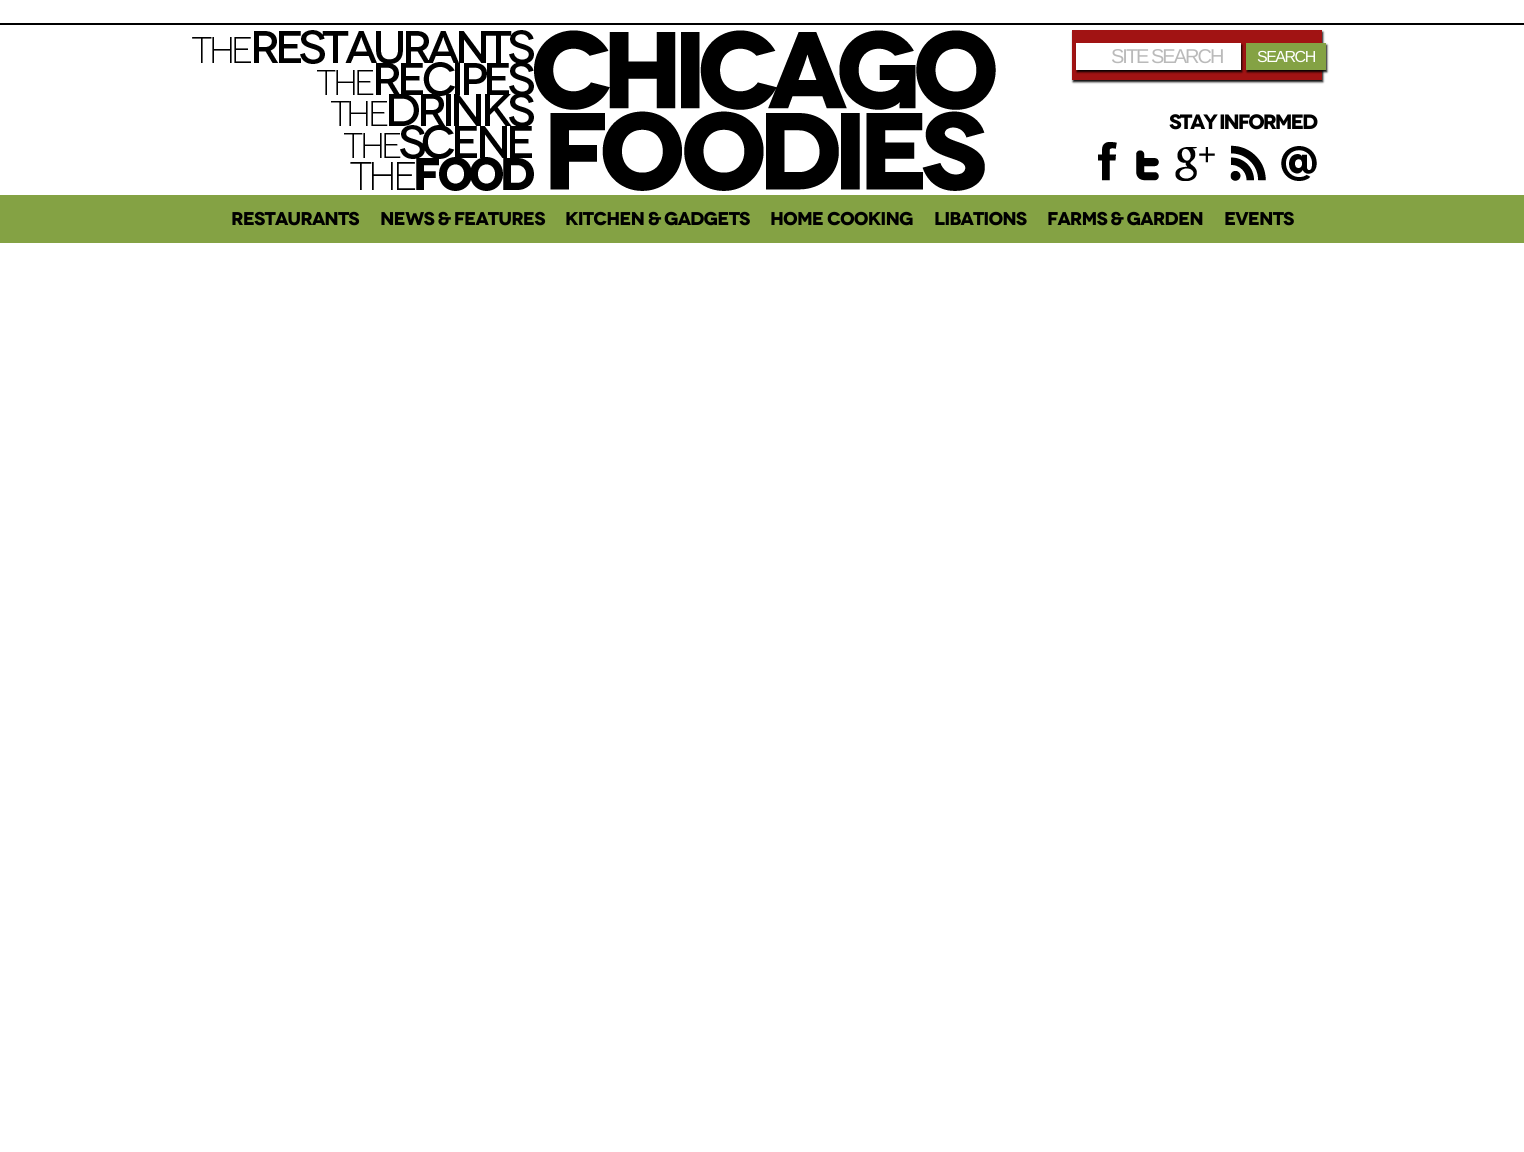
import math
import cairo


def write_spaced(ctx, x, y, s, letter, word):
	ctx.move_to(x, y)
	for ch in s:
		ctx.show_text(ch)
		ctx.rel_move_to(letter + word * (ch == ' '), 0)

def round_path(ctx, x, y, w, h, r):
	ctx.new_sub_path()
	for i, (u, v) in enumerate([(x + w - r, y + h - r), (x + r, y + h - r), (x + r, y + r), (x + w - r, y + r)]):
		ctx.arc(u, v, r, i * math.pi / 2, (i + 1) * math.pi / 2)
	ctx.close_path()

def blur_box(ctx, x, y, w, h, r, blur, alpha):
	ctx.push_group_with_content(cairo.CONTENT_ALPHA)
	ctx.set_operator(cairo.OPERATOR_SOURCE)
	for i in range(15, -16, -2):
		e = blur * i / 6
		if min(w, h) + 2 * e > 0:
			ctx.set_source_rgba(0, 0, 0, alpha * math.erfc((i - 1) / 8.5) / 2)
			round_path(ctx, x - e, y - e, w + 2 * e, h + 2 * e, max(0, min(r + e + blur * .6, min(w, h) / 2 + e)))
			ctx.fill()
	ctx.mask(ctx.pop_group())

def paste(ctx, path, x, y, w, h):
	ctx.save()
	ctx.set_source_surface(cairo.ImageSurface.create_from_png(path), x, y)
	ctx.rectangle(x, y, w, h)
	ctx.fill()
	ctx.restore()

def draw(ctx):
	ctx.set_source_rgb(1, 1, 1)
	ctx.paint()
	ctx.set_source_rgb(0, 0, 0)
	ctx.rectangle(0, 23, 1524, 2)
	ctx.fill()
	paste(ctx, 'media/1.png', 192, 30, 342, 161)
	paste(ctx, 'media/2.png', 534, 30, 462, 161)
	ctx.set_source_rgb(0, 0, 0)
	blur_box(ctx, 1073, 32, 250, 50, 0, 1, 0.95)
	ctx.set_source_rgb(0.631, 0.078, 0.078)
	ctx.rectangle(1072, 30, 250, 50)
	ctx.fill()
	ctx.set_source_rgb(0, 0, 0)
	blur_box(ctx, 1077, 45, 165, 27, 0, 1, 0.95)
	ctx.set_source_rgb(1, 1, 1)
	ctx.rectangle(1076, 43, 165, 27)
	ctx.fill()
	ctx.select_font_face('Liberation Sans')
	ctx.set_font_size(20)
	ctx.set_source_rgb(0.729, 0.729, 0.729)
	write_spaced(ctx, 1111, 63, 'SITE SEARCH', -2, 0)
	ctx.set_source_rgb(0, 0, 0)
	blur_box(ctx, 1247, 45, 80, 27, 0, 1, 0.95)
	ctx.set_source_rgb(0.518, 0.635, 0.267)
	ctx.rectangle(1246, 43, 80, 27)
	ctx.fill()
	ctx.set_font_size(16)
	ctx.set_source_rgb(1, 1, 1)
	write_spaced(ctx, 1257, 62, 'SEARCH', -1.5, 0)
	ctx.select_font_face('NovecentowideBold', cairo.FONT_SLANT_NORMAL, cairo.FONT_WEIGHT_BOLD)
	ctx.set_font_size(20.75)
	ctx.set_source_rgb(0, 0, 0)
	write_spaced(ctx, 1169, 129, 'STAY INFORMED', -2.1, 0)
	paste(ctx, 'media/3.png', 1098, 142, 19, 39)
	paste(ctx, 'media/4.png', 1136, 150, 23, 31)
	paste(ctx, 'media/5.png', 1175, 147, 40, 34)
	paste(ctx, 'media/6.png', 1230, 145, 36, 36)
	paste(ctx, 'media/7.png', 1281, 146, 36, 35)
	ctx.set_source_rgb(0.518, 0.635, 0.267)
	ctx.rectangle(0, 195, 1524, 48)
	ctx.fill()
	ctx.set_font_size(18.5)
	ctx.set_source_rgb(0, 0, 0)
	for x, y, s in [
		(231, 225, 'Restaurants'),
		(380, 225, 'News & Features'),
		(565, 225, 'Kitchen & Gadgets'),
		(770, 225, 'Home Cooking'),
		(934, 225, 'Libations'),
		(1047, 225, 'Farms & Garden'),
		(1224, 225, 'Events'),
	]:
		write_spaced(ctx, x, y, s, -0.9, 0)


surface = cairo.ImageSurface(cairo.FORMAT_RGB24, 1524, 1152)
ctx = cairo.Context(surface)
options = cairo.FontOptions()
options.set_hint_metrics(cairo.HINT_METRICS_OFF)
options.set_hint_style(cairo.HINT_STYLE_NONE)
ctx.set_font_options(options)
ctx.set_miter_limit(4)
draw(ctx)
surface.write_to_png('image.png')
